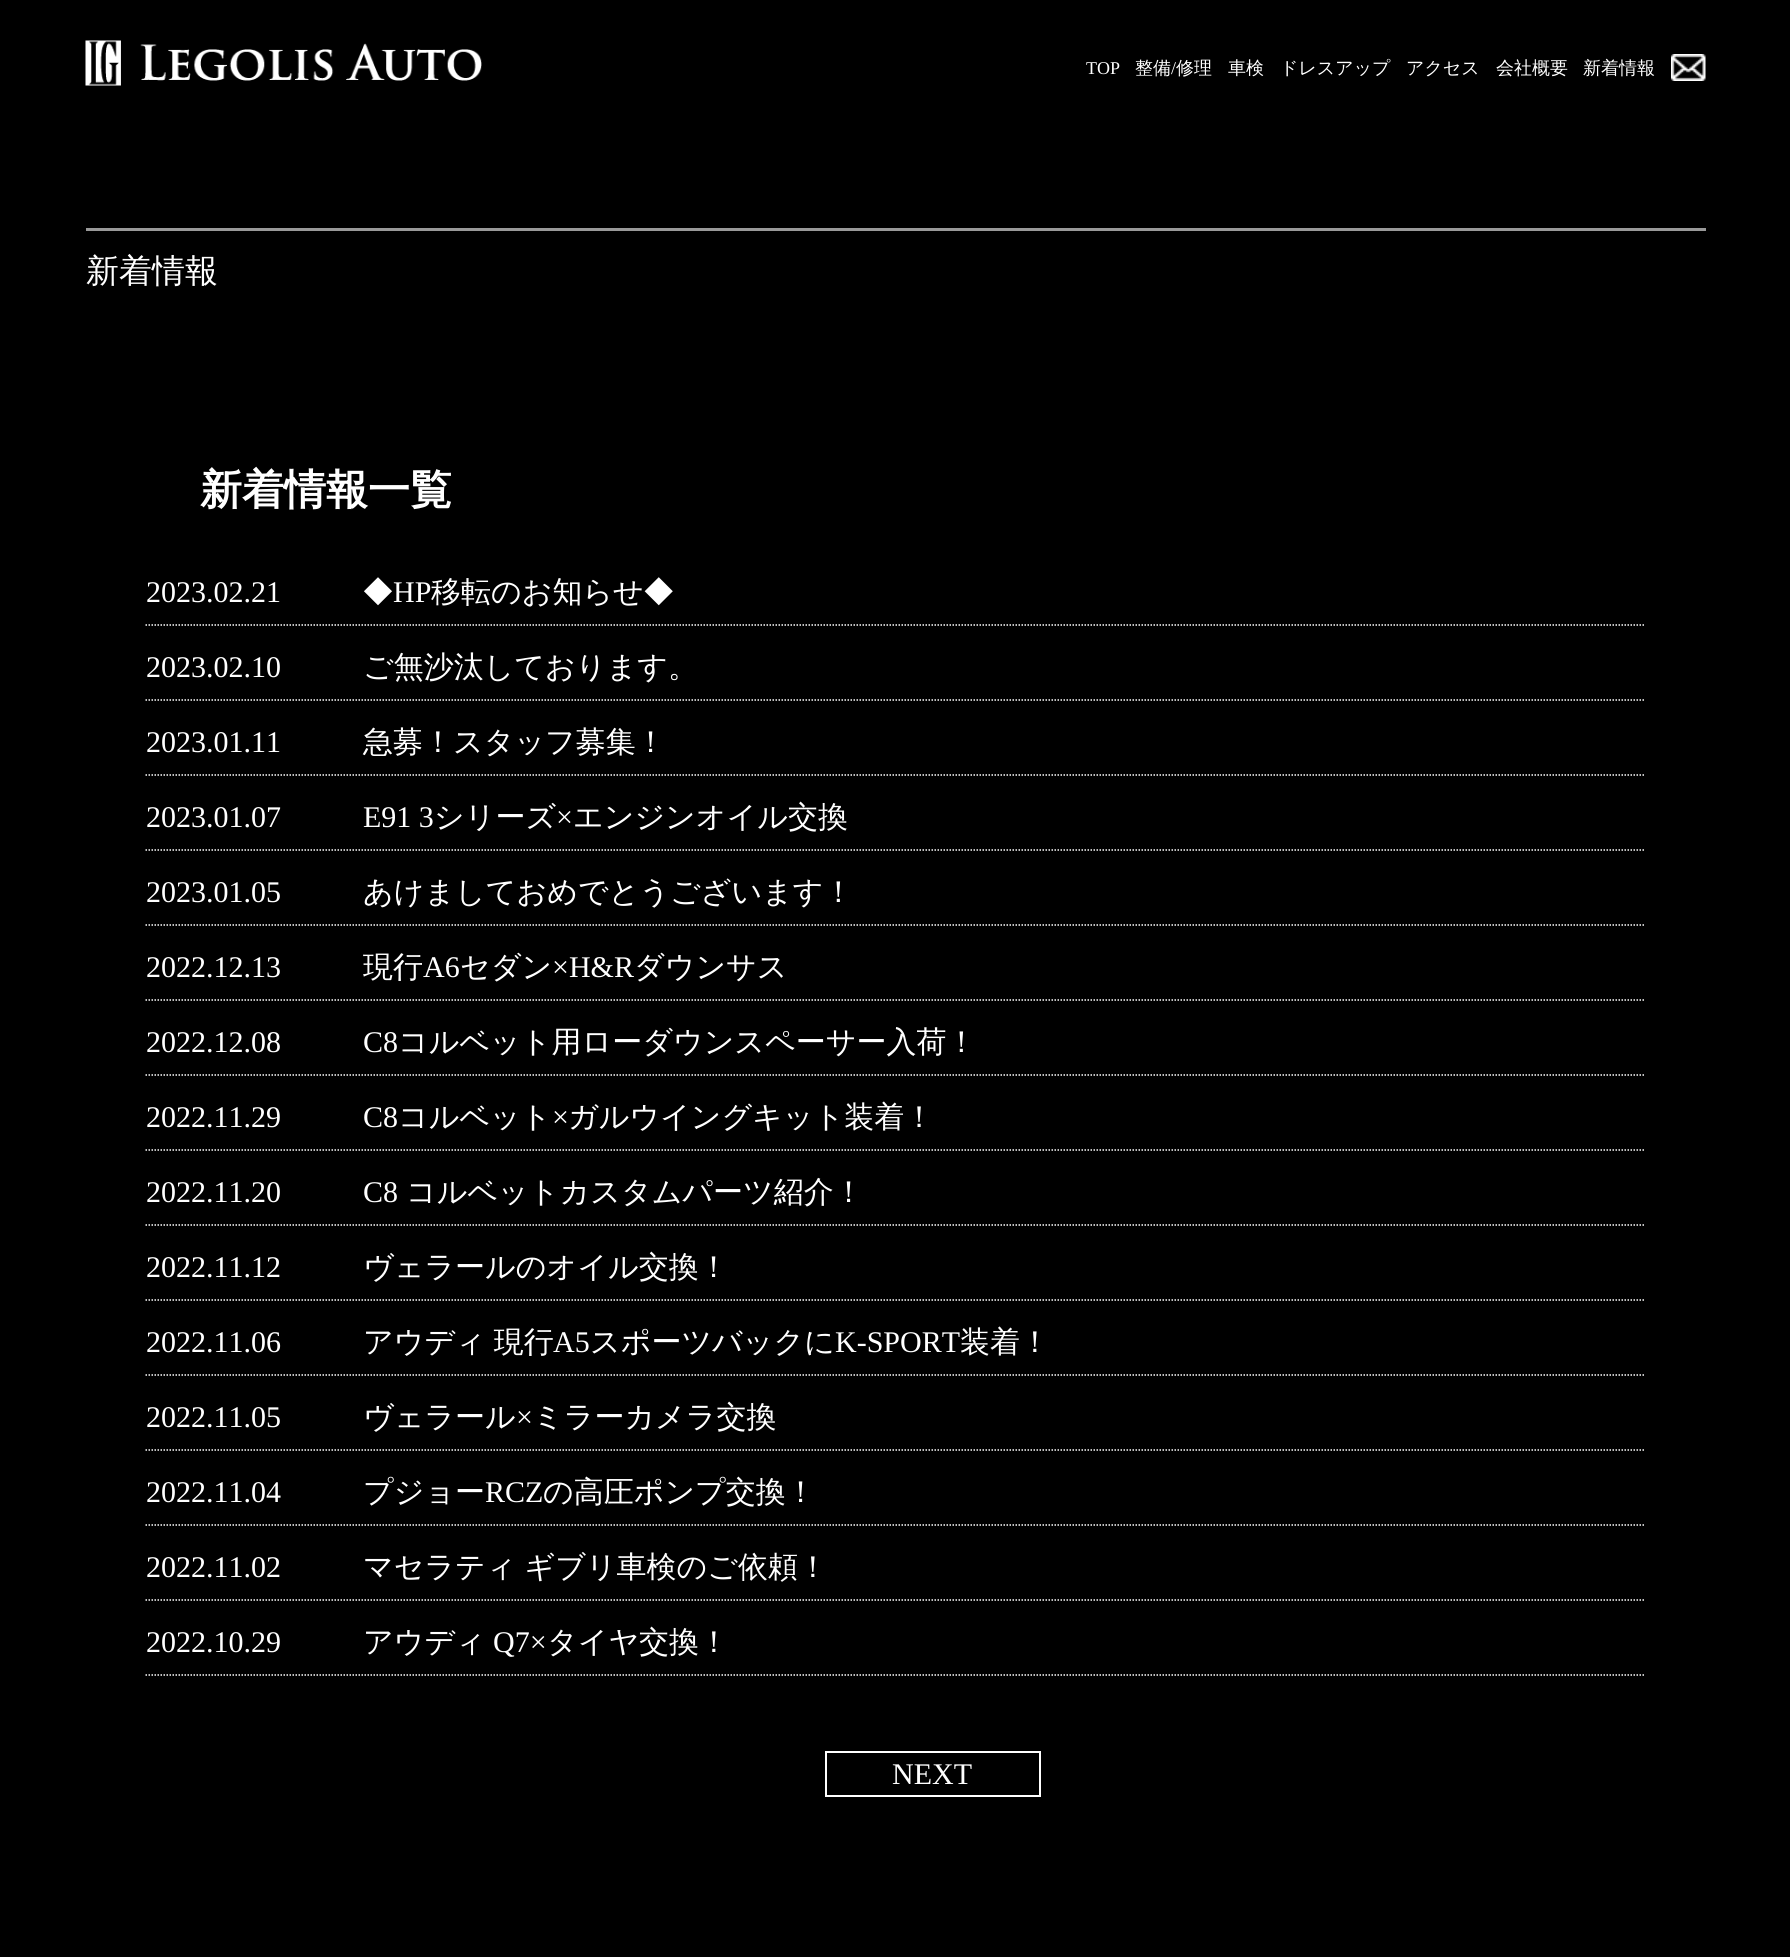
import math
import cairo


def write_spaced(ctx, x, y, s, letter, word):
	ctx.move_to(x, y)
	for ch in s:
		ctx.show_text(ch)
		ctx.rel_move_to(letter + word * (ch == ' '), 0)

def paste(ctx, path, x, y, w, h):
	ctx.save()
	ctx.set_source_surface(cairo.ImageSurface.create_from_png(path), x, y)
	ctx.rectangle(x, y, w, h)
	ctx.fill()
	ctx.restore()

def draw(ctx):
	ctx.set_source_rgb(0, 0, 0)
	ctx.paint()
	paste(ctx, 'media/1.png', 85, 40, 397, 46)
	ctx.select_font_face('Liberation Serif')
	ctx.set_font_size(18)
	ctx.set_source_rgb(1, 1, 1)
	ctx.move_to(1086, 74)
	ctx.show_text('TOP')
	ctx.select_font_face('WenQuanYi Zen Hei Medium')
	ctx.move_to(1135, 74)
	ctx.show_text('整備')
	ctx.select_font_face('Liberation Serif')
	ctx.move_to(1171, 74)
	ctx.show_text('/')
	ctx.select_font_face('WenQuanYi Zen Hei Medium')
	for x, y, s in [
		(1176, 74, '修理'),
		(1228, 74, '車検'),
		(1280, 74, 'ドレスアップ'),
		(1406, 74, 'アクセス'),
		(1496, 74, '会社概要'),
		(1583, 74, '新着情報'),
	]:
		ctx.move_to(x, y)
		ctx.show_text(s)
	paste(ctx, 'media/2.png', 1671, 54, 35, 27)
	ctx.set_source_rgb(0.6, 0.6, 0.6)
	ctx.rectangle(86, 228, 1620, 3)
	ctx.fill()
	ctx.set_font_size(33)
	ctx.set_source_rgb(1, 1, 1)
	ctx.move_to(86, 282)
	ctx.show_text('新着情報')
	ctx.select_font_face('WenQuanYi Zen Hei', cairo.FONT_SLANT_NORMAL, cairo.FONT_WEIGHT_BOLD)
	ctx.set_font_size(42)
	ctx.move_to(200, 504)
	ctx.show_text('新着情報一覧')
	ctx.new_path()
	ctx.move_to(145.5, 625)
	ctx.line_to(1645.5, 625)
	ctx.set_line_width(1.5)
	ctx.set_dash([1.5, 1.5])
	ctx.stroke()
	ctx.select_font_face('Liberation Serif')
	ctx.set_font_size(30)
	ctx.move_to(146, 602)
	ctx.show_text('2023.02.21')
	ctx.select_font_face('WenQuanYi Zen Hei Medium')
	ctx.move_to(363, 602)
	ctx.show_text('◆')
	ctx.select_font_face('Liberation Serif')
	ctx.move_to(393, 602)
	ctx.show_text('HP')
	ctx.select_font_face('WenQuanYi Zen Hei Medium')
	ctx.move_to(431, 602)
	ctx.show_text('移転のお知らせ◆')
	ctx.new_path()
	ctx.move_to(145.5, 700)
	ctx.line_to(1645.5, 700)
	ctx.stroke()
	ctx.select_font_face('Liberation Serif')
	ctx.move_to(146, 677)
	ctx.show_text('2023.02.10')
	ctx.select_font_face('WenQuanYi Zen Hei Medium')
	ctx.move_to(363, 677)
	ctx.show_text('ご無沙汰しております。')
	ctx.new_path()
	ctx.move_to(145.5, 775)
	ctx.line_to(1645.5, 775)
	ctx.stroke()
	ctx.select_font_face('Liberation Serif')
	ctx.move_to(146, 752)
	ctx.show_text('2023.01.11')
	ctx.select_font_face('WenQuanYi Zen Hei Medium')
	ctx.move_to(363, 752)
	ctx.show_text('急募！スタッフ募集！')
	ctx.new_path()
	ctx.move_to(145.5, 850)
	ctx.line_to(1645.5, 850)
	ctx.stroke()
	ctx.select_font_face('Liberation Serif')
	ctx.move_to(146, 827)
	ctx.show_text('2023.01.07')
	ctx.move_to(363, 827)
	ctx.show_text('E91 3')
	ctx.select_font_face('WenQuanYi Zen Hei Medium')
	ctx.move_to(434, 827)
	ctx.show_text('シリーズ')
	ctx.select_font_face('Liberation Serif')
	ctx.move_to(556, 827)
	ctx.show_text('×')
	ctx.select_font_face('WenQuanYi Zen Hei Medium')
	ctx.move_to(573, 827)
	ctx.show_text('エンジンオイル交換')
	ctx.new_path()
	ctx.move_to(145.5, 925)
	ctx.line_to(1645.5, 925)
	ctx.stroke()
	ctx.select_font_face('Liberation Serif')
	ctx.move_to(146, 902)
	ctx.show_text('2023.01.05')
	ctx.select_font_face('WenQuanYi Zen Hei Medium')
	ctx.move_to(363, 902)
	ctx.show_text('あけましておめでとうございます！')
	ctx.new_path()
	ctx.move_to(145.5, 1000)
	ctx.line_to(1645.5, 1000)
	ctx.stroke()
	ctx.select_font_face('Liberation Serif')
	ctx.move_to(146, 977)
	ctx.show_text('2022.12.13')
	ctx.select_font_face('WenQuanYi Zen Hei Medium')
	ctx.move_to(363, 977)
	ctx.show_text('現行')
	ctx.select_font_face('Liberation Serif')
	ctx.move_to(423, 977)
	ctx.show_text('A6')
	ctx.select_font_face('WenQuanYi Zen Hei Medium')
	ctx.move_to(460, 977)
	ctx.show_text('セダン')
	ctx.select_font_face('Liberation Serif')
	ctx.move_to(552, 977)
	ctx.show_text('×H&R')
	ctx.select_font_face('WenQuanYi Zen Hei Medium')
	ctx.move_to(634, 977)
	ctx.show_text('ダウンサス')
	ctx.new_path()
	ctx.move_to(145.5, 1075)
	ctx.line_to(1645.5, 1075)
	ctx.stroke()
	ctx.select_font_face('Liberation Serif')
	ctx.move_to(146, 1052)
	ctx.show_text('2022.12.08')
	ctx.move_to(363, 1052)
	ctx.show_text('C8')
	ctx.select_font_face('WenQuanYi Zen Hei Medium')
	ctx.move_to(398, 1052)
	ctx.show_text('コルベット用ローダウンスペーサー入荷！')
	ctx.new_path()
	ctx.move_to(145.5, 1150)
	ctx.line_to(1645.5, 1150)
	ctx.stroke()
	ctx.select_font_face('Liberation Serif')
	ctx.move_to(146, 1127)
	ctx.show_text('2022.11.29')
	ctx.move_to(363, 1127)
	ctx.show_text('C8')
	ctx.select_font_face('WenQuanYi Zen Hei Medium')
	ctx.move_to(398, 1127)
	ctx.show_text('コルベット')
	ctx.select_font_face('Liberation Serif')
	ctx.move_to(552, 1127)
	ctx.show_text('×')
	ctx.select_font_face('WenQuanYi Zen Hei Medium')
	ctx.move_to(568, 1127)
	ctx.show_text('ガルウイングキット装着！')
	ctx.new_path()
	ctx.move_to(145.5, 1225)
	ctx.line_to(1645.5, 1225)
	ctx.stroke()
	ctx.select_font_face('Liberation Serif')
	ctx.move_to(146, 1202)
	ctx.show_text('2022.11.20')
	ctx.move_to(363, 1202)
	ctx.show_text('C8')
	ctx.select_font_face('WenQuanYi Zen Hei Medium')
	ctx.move_to(406, 1202)
	ctx.show_text('コルベットカスタムパーツ紹介！')
	ctx.new_path()
	ctx.move_to(145.5, 1300)
	ctx.line_to(1645.5, 1300)
	ctx.stroke()
	ctx.select_font_face('Liberation Serif')
	ctx.move_to(146, 1277)
	ctx.show_text('2022.11.12')
	ctx.select_font_face('WenQuanYi Zen Hei Medium')
	ctx.move_to(363, 1277)
	ctx.show_text('ヴェラールのオイル交換！')
	ctx.new_path()
	ctx.move_to(145.5, 1375)
	ctx.line_to(1645.5, 1375)
	ctx.stroke()
	ctx.select_font_face('Liberation Serif')
	ctx.move_to(146, 1352)
	ctx.show_text('2022.11.06')
	ctx.select_font_face('WenQuanYi Zen Hei Medium')
	write_spaced(ctx, 363, 1352, 'アウディ 現行', 0, -1)
	ctx.select_font_face('Liberation Serif')
	ctx.move_to(553, 1352)
	ctx.show_text('A5')
	ctx.select_font_face('WenQuanYi Zen Hei Medium')
	ctx.move_to(590, 1352)
	ctx.show_text('スポーツバックに')
	ctx.select_font_face('Liberation Serif')
	ctx.move_to(835, 1352)
	ctx.show_text('K-SPORT')
	ctx.select_font_face('WenQuanYi Zen Hei Medium')
	ctx.move_to(960, 1352)
	ctx.show_text('装着！')
	ctx.new_path()
	ctx.move_to(145.5, 1450)
	ctx.line_to(1645.5, 1450)
	ctx.stroke()
	ctx.select_font_face('Liberation Serif')
	ctx.move_to(146, 1427)
	ctx.show_text('2022.11.05')
	ctx.select_font_face('WenQuanYi Zen Hei Medium')
	ctx.move_to(363, 1427)
	ctx.show_text('ヴェラール')
	ctx.select_font_face('Liberation Serif')
	ctx.move_to(516, 1427)
	ctx.show_text('×')
	ctx.select_font_face('WenQuanYi Zen Hei Medium')
	ctx.move_to(533, 1427)
	ctx.show_text('ミラーカメラ交換')
	ctx.new_path()
	ctx.move_to(145.5, 1525)
	ctx.line_to(1645.5, 1525)
	ctx.stroke()
	ctx.select_font_face('Liberation Serif')
	ctx.move_to(146, 1502)
	ctx.show_text('2022.11.04')
	ctx.select_font_face('WenQuanYi Zen Hei Medium')
	ctx.move_to(363, 1502)
	ctx.show_text('プジョー')
	ctx.select_font_face('Liberation Serif')
	ctx.move_to(485, 1502)
	ctx.show_text('RCZ')
	ctx.select_font_face('WenQuanYi Zen Hei Medium')
	ctx.move_to(543, 1502)
	ctx.show_text('の高圧ポンプ交換！')
	ctx.new_path()
	ctx.move_to(145.5, 1600)
	ctx.line_to(1645.5, 1600)
	ctx.stroke()
	ctx.select_font_face('Liberation Serif')
	ctx.move_to(146, 1577)
	ctx.show_text('2022.11.02')
	ctx.select_font_face('WenQuanYi Zen Hei Medium')
	write_spaced(ctx, 363, 1577, 'マセラティ ギブリ車検のご依頼！', 0, -1)
	ctx.new_path()
	ctx.move_to(145.5, 1675)
	ctx.line_to(1645.5, 1675)
	ctx.stroke()
	ctx.select_font_face('Liberation Serif')
	ctx.move_to(146, 1652)
	ctx.show_text('2022.10.29')
	ctx.select_font_face('WenQuanYi Zen Hei Medium')
	ctx.move_to(363, 1652)
	ctx.show_text('アウディ')
	ctx.select_font_face('Liberation Serif')
	ctx.move_to(493, 1652)
	ctx.show_text('Q7×')
	ctx.select_font_face('WenQuanYi Zen Hei Medium')
	ctx.move_to(547, 1652)
	ctx.show_text('タイヤ交換！')
	ctx.rectangle(826, 1752, 214, 44)
	ctx.set_line_width(2)
	ctx.set_dash([])
	ctx.stroke()
	ctx.select_font_face('Liberation Serif')
	ctx.move_to(892, 1784)
	ctx.show_text('NEXT')


surface = cairo.ImageSurface(cairo.FORMAT_RGB24, 1790, 1957)
ctx = cairo.Context(surface)
options = cairo.FontOptions()
options.set_hint_metrics(cairo.HINT_METRICS_OFF)
options.set_hint_style(cairo.HINT_STYLE_NONE)
ctx.set_font_options(options)
ctx.set_miter_limit(4)
draw(ctx)
surface.write_to_png('image.png')
